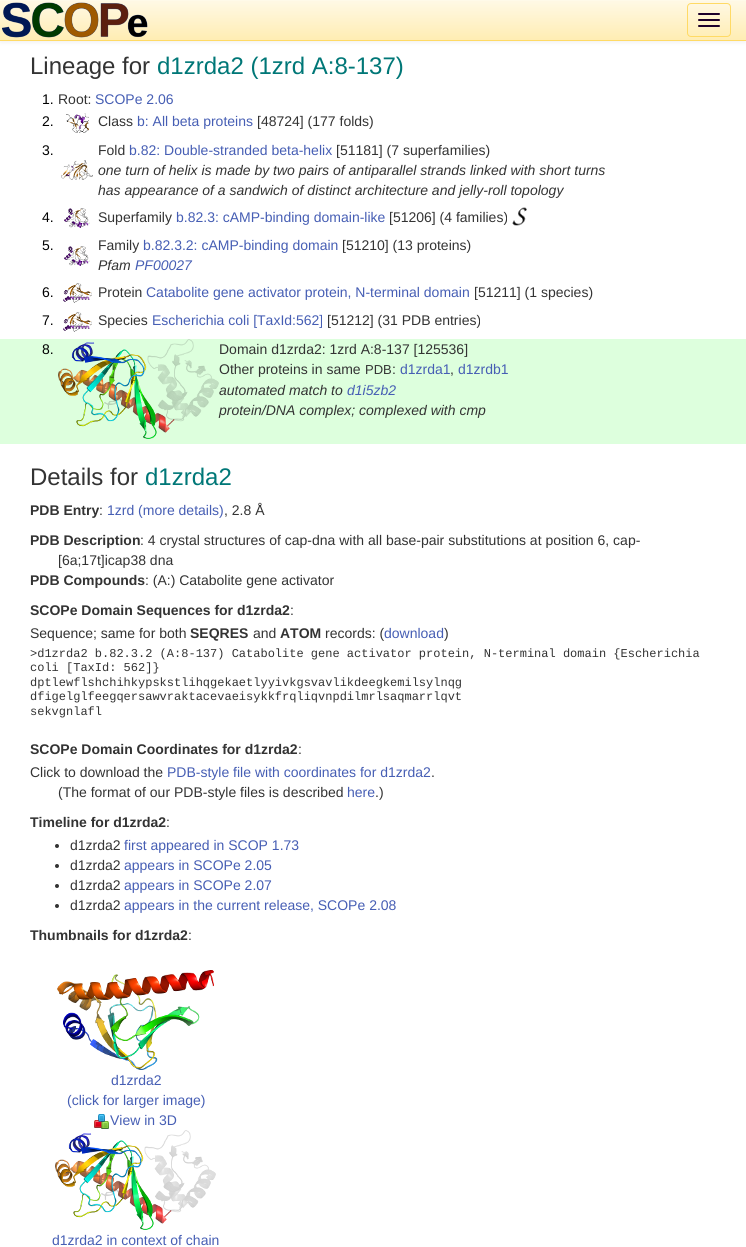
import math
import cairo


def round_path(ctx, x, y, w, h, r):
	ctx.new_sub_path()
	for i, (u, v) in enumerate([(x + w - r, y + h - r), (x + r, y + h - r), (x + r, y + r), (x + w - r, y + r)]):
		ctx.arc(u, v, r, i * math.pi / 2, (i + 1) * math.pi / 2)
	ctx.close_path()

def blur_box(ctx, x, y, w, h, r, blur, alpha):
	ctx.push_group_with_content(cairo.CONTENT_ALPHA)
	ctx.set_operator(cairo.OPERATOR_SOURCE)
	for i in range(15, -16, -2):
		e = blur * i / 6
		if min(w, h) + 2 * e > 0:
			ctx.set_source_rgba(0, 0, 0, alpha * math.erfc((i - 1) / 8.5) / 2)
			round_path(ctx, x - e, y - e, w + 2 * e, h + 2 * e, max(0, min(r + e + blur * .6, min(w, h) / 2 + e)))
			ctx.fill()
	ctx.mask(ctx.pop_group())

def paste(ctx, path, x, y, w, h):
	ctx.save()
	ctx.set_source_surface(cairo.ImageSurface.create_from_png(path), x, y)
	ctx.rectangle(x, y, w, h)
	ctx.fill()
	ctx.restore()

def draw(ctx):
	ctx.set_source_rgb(1, 1, 1)
	ctx.paint()
	ctx.set_source_rgb(0, 0, 0)
	blur_box(ctx, 0, 1, 746, 41, 0, 2.5, 0.07)
	gradient = cairo.LinearGradient(373, 0, 373, 40)
	gradient.add_color_stop_rgba(0, 1, 0.976, 0.902, 1)
	gradient.add_color_stop_rgba(1, 1, 0.929, 0.702, 1)
	ctx.set_source(gradient)
	ctx.rectangle(0, 1, 746, 39)
	ctx.fill()
	ctx.set_source_rgb(1, 0.98, 0.914)
	ctx.rectangle(0, 0, 746, 1)
	ctx.fill()
	ctx.set_source_rgb(1, 0.855, 0.396)
	ctx.rectangle(0, 40, 746, 1)
	ctx.fill()
	paste(ctx, 'media/1.png', 2, 2, 146, 36)
	round_path(ctx, 687.5, 3.5, 43, 33, 3.5)
	ctx.set_line_width(1)
	ctx.stroke()
	ctx.set_source_rgb(0.114, 0, 0.169)
	round_path(ctx, 698, 13, 22, 2, 1)
	ctx.fill()
	round_path(ctx, 698, 19, 22, 2, 1)
	ctx.fill()
	round_path(ctx, 698, 25, 22, 2, 1)
	ctx.fill()
	ctx.select_font_face('Liberation Sans')
	ctx.set_font_size(24)
	ctx.set_source_rgb(0.2, 0.2, 0.2)
	ctx.move_to(30, 74)
	ctx.show_text('Lineage for')
	ctx.set_source_rgb(0, 0.467, 0.467)
	ctx.move_to(157, 74)
	ctx.show_text('d1zrda2 (1zrd A:8-137)')
	ctx.set_font_size(14)
	ctx.set_source_rgb(0, 0, 0)
	ctx.move_to(42, 104)
	ctx.show_text('1.')
	ctx.set_source_rgb(0.2, 0.2, 0.2)
	ctx.move_to(58, 104)
	ctx.show_text('Root:')
	ctx.set_source_rgb(0.275, 0.369, 0.706)
	ctx.move_to(95, 104)
	ctx.show_text('SCOPe 2.06')
	ctx.set_source_rgb(0, 0, 0)
	ctx.move_to(42, 126)
	ctx.show_text('2.')
	paste(ctx, 'media/2.png', 66, 113, 23, 20)
	ctx.set_source_rgb(0.2, 0.2, 0.2)
	ctx.move_to(98, 126)
	ctx.show_text('Class')
	ctx.set_source_rgb(0.275, 0.369, 0.706)
	ctx.move_to(137, 126)
	ctx.show_text('b: All beta proteins')
	ctx.set_source_rgb(0.2, 0.2, 0.2)
	ctx.move_to(257, 126)
	ctx.show_text('[48724] (177 folds)')
	ctx.set_source_rgb(0, 0, 0)
	ctx.move_to(42, 155)
	ctx.show_text('3.')
	paste(ctx, 'media/3.png', 61, 160, 32, 20)
	ctx.set_source_rgb(0.2, 0.2, 0.2)
	ctx.move_to(98, 155)
	ctx.show_text('Fold')
	ctx.set_source_rgb(0.275, 0.369, 0.706)
	ctx.move_to(129, 155)
	ctx.show_text('b.82: Double-stranded beta-helix')
	ctx.set_source_rgb(0.2, 0.2, 0.2)
	ctx.move_to(336, 155)
	ctx.show_text('[51181] (7 superfamilies)')
	ctx.select_font_face('Liberation Sans', cairo.FONT_SLANT_ITALIC)
	ctx.move_to(98, 175)
	ctx.show_text('one turn of helix is made by two pairs of antiparallel strands linked with short turns')
	ctx.move_to(98, 195)
	ctx.show_text('has appearance of a sandwich of distinct architecture and jelly-roll topology')
	ctx.select_font_face('Liberation Sans')
	ctx.set_source_rgb(0, 0, 0)
	ctx.move_to(42, 222)
	ctx.show_text('4.')
	paste(ctx, 'media/4.png', 64, 208, 26, 20)
	ctx.set_source_rgb(0.2, 0.2, 0.2)
	ctx.move_to(98, 222)
	ctx.show_text('Superfamily')
	ctx.set_source_rgb(0.275, 0.369, 0.706)
	ctx.move_to(176, 222)
	ctx.show_text('b.82.3: cAMP-binding domain-like')
	ctx.set_source_rgb(0.2, 0.2, 0.2)
	ctx.move_to(389, 222)
	ctx.show_text('[51206] (4 families)')
	paste(ctx, 'media/5.png', 512, 207, 15, 19)
	ctx.set_source_rgb(0, 0, 0)
	ctx.move_to(42, 250)
	ctx.show_text('5.')
	paste(ctx, 'media/4.png', 64, 246, 26, 20)
	ctx.set_source_rgb(0.2, 0.2, 0.2)
	ctx.move_to(98, 250)
	ctx.show_text('Family')
	ctx.set_source_rgb(0.275, 0.369, 0.706)
	ctx.move_to(143, 250)
	ctx.show_text('b.82.3.2: cAMP-binding domain')
	ctx.set_source_rgb(0.2, 0.2, 0.2)
	ctx.move_to(342, 250)
	ctx.show_text('[51210] (13 proteins)')
	ctx.select_font_face('Liberation Sans', cairo.FONT_SLANT_ITALIC)
	ctx.move_to(98, 270)
	ctx.show_text('Pfam')
	ctx.set_source_rgb(0.275, 0.369, 0.706)
	ctx.move_to(135, 270)
	ctx.show_text('PF00027')
	ctx.select_font_face('Liberation Sans')
	ctx.set_source_rgb(0, 0, 0)
	ctx.move_to(42, 297)
	ctx.show_text('6.')
	paste(ctx, 'media/6.png', 63, 283, 29, 20)
	ctx.set_source_rgb(0.2, 0.2, 0.2)
	ctx.move_to(98, 297)
	ctx.show_text('Protein')
	ctx.set_source_rgb(0.275, 0.369, 0.706)
	ctx.move_to(146, 297)
	ctx.show_text('Catabolite gene activator protein, N-terminal domain')
	ctx.set_source_rgb(0.2, 0.2, 0.2)
	ctx.move_to(474, 297)
	ctx.show_text('[51211] (1 species)')
	ctx.set_source_rgb(0, 0, 0)
	ctx.move_to(42, 325)
	ctx.show_text('7.')
	paste(ctx, 'media/6.png', 63, 312, 29, 20)
	ctx.set_source_rgb(0.2, 0.2, 0.2)
	ctx.move_to(98, 325)
	ctx.show_text('Species')
	ctx.set_source_rgb(0.275, 0.369, 0.706)
	ctx.move_to(152, 325)
	ctx.show_text('Escherichia coli [TaxId:562]')
	ctx.set_source_rgb(0.2, 0.2, 0.2)
	ctx.move_to(327, 325)
	ctx.show_text('[51212] (31 PDB entries)')
	ctx.set_source_rgb(0.867, 1, 0.867)
	ctx.rectangle(0, 339, 746, 105)
	ctx.fill()
	ctx.set_source_rgb(0, 0, 0)
	ctx.move_to(42, 354)
	ctx.show_text('8.')
	paste(ctx, 'media/7.png', 58, 339, 161, 100)
	ctx.set_source_rgb(0.2, 0.2, 0.2)
	ctx.move_to(219, 354)
	ctx.show_text('Domain d1zrda2: 1zrd A:8-137 [125536]')
	ctx.move_to(219, 374)
	ctx.show_text('Other proteins in same')
	ctx.set_font_size(13)
	ctx.move_to(365, 374)
	ctx.show_text('PDB')
	ctx.set_font_size(14)
	ctx.move_to(392, 374)
	ctx.show_text(':')
	ctx.set_source_rgb(0.275, 0.369, 0.706)
	ctx.move_to(400, 374)
	ctx.show_text('d1zrda1')
	ctx.set_source_rgb(0.2, 0.2, 0.2)
	ctx.move_to(450, 374)
	ctx.show_text(',')
	ctx.set_source_rgb(0.275, 0.369, 0.706)
	ctx.move_to(458, 374)
	ctx.show_text('d1zrdb1')
	ctx.select_font_face('Liberation Sans', cairo.FONT_SLANT_ITALIC)
	ctx.set_source_rgb(0.2, 0.2, 0.2)
	ctx.move_to(219, 395)
	ctx.show_text('automated match to')
	ctx.set_source_rgb(0.275, 0.369, 0.706)
	ctx.move_to(347, 395)
	ctx.show_text('d1i5zb2')
	ctx.set_source_rgb(0.2, 0.2, 0.2)
	ctx.move_to(219, 415)
	ctx.show_text('protein/DNA complex; complexed with cmp')
	ctx.select_font_face('Liberation Sans')
	ctx.set_font_size(24)
	ctx.move_to(30, 485)
	ctx.show_text('Details for')
	ctx.set_source_rgb(0, 0.467, 0.467)
	ctx.move_to(145, 485)
	ctx.show_text('d1zrda2')
	ctx.select_font_face('Liberation Sans', cairo.FONT_SLANT_NORMAL, cairo.FONT_WEIGHT_BOLD)
	ctx.set_font_size(14)
	ctx.set_source_rgb(0.2, 0.2, 0.2)
	ctx.move_to(30, 515)
	ctx.show_text('PDB Entry')
	ctx.select_font_face('Liberation Sans')
	ctx.move_to(99, 515)
	ctx.show_text(':')
	ctx.set_source_rgb(0.275, 0.369, 0.706)
	ctx.move_to(107, 515)
	ctx.show_text('1zrd (more details)')
	ctx.set_source_rgb(0.2, 0.2, 0.2)
	ctx.move_to(224, 515)
	ctx.show_text(', 2.8 Å')
	ctx.select_font_face('Liberation Sans', cairo.FONT_SLANT_NORMAL, cairo.FONT_WEIGHT_BOLD)
	ctx.move_to(30, 545)
	ctx.show_text('PDB Description')
	ctx.select_font_face('Liberation Sans')
	ctx.move_to(140, 545)
	ctx.show_text(': 4 crystal structures of cap-dna with all base-pair substitutions at position 6, cap-')
	ctx.move_to(58, 565)
	ctx.show_text('[6a;17t]icap38 dna')
	ctx.select_font_face('Liberation Sans', cairo.FONT_SLANT_NORMAL, cairo.FONT_WEIGHT_BOLD)
	ctx.move_to(30, 585)
	ctx.show_text('PDB Compounds')
	ctx.select_font_face('Liberation Sans')
	ctx.move_to(145, 585)
	ctx.show_text(': (A:) Catabolite gene activator')
	ctx.select_font_face('Liberation Sans', cairo.FONT_SLANT_NORMAL, cairo.FONT_WEIGHT_BOLD)
	ctx.move_to(30, 615)
	ctx.show_text('SCOPe Domain Sequences for d1zrda2')
	ctx.select_font_face('Liberation Sans')
	ctx.move_to(290, 615)
	ctx.show_text(':')
	ctx.move_to(30, 638)
	ctx.show_text('Sequence; same for both')
	ctx.select_font_face('Liberation Sans', cairo.FONT_SLANT_NORMAL, cairo.FONT_WEIGHT_BOLD)
	ctx.move_to(190, 638)
	ctx.show_text('SEQRES')
	ctx.select_font_face('Liberation Sans')
	ctx.move_to(253, 638)
	ctx.show_text('and')
	ctx.select_font_face('Liberation Sans', cairo.FONT_SLANT_NORMAL, cairo.FONT_WEIGHT_BOLD)
	ctx.move_to(280, 638)
	ctx.show_text('ATOM')
	ctx.select_font_face('Liberation Sans')
	ctx.move_to(325, 638)
	ctx.show_text('records: (')
	ctx.set_source_rgb(0.275, 0.369, 0.706)
	ctx.move_to(384, 638)
	ctx.show_text('download')
	ctx.set_source_rgb(0.2, 0.2, 0.2)
	ctx.move_to(444, 638)
	ctx.show_text(')')
	ctx.select_font_face('Liberation Mono')
	ctx.set_font_size(12)
	for x, y, s in [
		(30, 657, '>d1zrda2 b.82.3.2 (A:8-137) Catabolite gene activator protein, N-terminal domain {Escherichia'),
		(30, 671, 'coli [TaxId: 562]}'),
		(30, 686, 'dptlewflshchihkypskstlihqgekaetlyyivkgsvavlikdeegkemilsylnqg'),
		(30, 700, 'dfigelglfeegqersawvraktacevaeisykkfrqliqvnpdilmrlsaqmarrlqvt'),
		(30, 715, 'sekvgnlafl'),
	]:
		ctx.move_to(x, y)
		ctx.show_text(s)
	ctx.select_font_face('Liberation Sans', cairo.FONT_SLANT_NORMAL, cairo.FONT_WEIGHT_BOLD)
	ctx.set_font_size(14)
	ctx.move_to(30, 754)
	ctx.show_text('SCOPe Domain Coordinates for d1zrda2')
	ctx.select_font_face('Liberation Sans')
	ctx.move_to(298, 754)
	ctx.show_text(':')
	ctx.move_to(30, 777)
	ctx.show_text('Click to download the')
	ctx.set_source_rgb(0.275, 0.369, 0.706)
	ctx.move_to(167, 777)
	ctx.show_text('PDB-style file with coordinates for d1zrda2')
	ctx.set_source_rgb(0.2, 0.2, 0.2)
	ctx.move_to(431, 777)
	ctx.show_text('.')
	ctx.move_to(58, 797)
	ctx.show_text('(The format of our PDB-style files is described')
	ctx.set_source_rgb(0.275, 0.369, 0.706)
	ctx.move_to(347, 797)
	ctx.show_text('here')
	ctx.set_source_rgb(0.2, 0.2, 0.2)
	ctx.move_to(375, 797)
	ctx.show_text('.)')
	ctx.select_font_face('Liberation Sans', cairo.FONT_SLANT_NORMAL, cairo.FONT_WEIGHT_BOLD)
	ctx.move_to(30, 827)
	ctx.show_text('Timeline for d1zrda2')
	ctx.select_font_face('Liberation Sans')
	ctx.move_to(166, 827)
	ctx.show_text(':')
	ctx.new_path()
	ctx.arc(57, 846, 2, 0, 2 * math.pi)
	ctx.fill()
	ctx.move_to(70, 850)
	ctx.show_text('d1zrda2')
	ctx.set_source_rgb(0.275, 0.369, 0.706)
	ctx.move_to(124, 850)
	ctx.show_text('first appeared in SCOP 1.73')
	ctx.set_source_rgb(0.2, 0.2, 0.2)
	ctx.new_path()
	ctx.arc(57, 866, 2, 0, 2 * math.pi)
	ctx.fill()
	ctx.move_to(70, 870)
	ctx.show_text('d1zrda2')
	ctx.set_source_rgb(0.275, 0.369, 0.706)
	ctx.move_to(124, 870)
	ctx.show_text('appears in SCOPe 2.05')
	ctx.set_source_rgb(0.2, 0.2, 0.2)
	ctx.new_path()
	ctx.arc(57, 886, 2, 0, 2 * math.pi)
	ctx.fill()
	ctx.move_to(70, 890)
	ctx.show_text('d1zrda2')
	ctx.set_source_rgb(0.275, 0.369, 0.706)
	ctx.move_to(124, 890)
	ctx.show_text('appears in SCOPe 2.07')
	ctx.set_source_rgb(0.2, 0.2, 0.2)
	ctx.new_path()
	ctx.arc(57, 906, 2, 0, 2 * math.pi)
	ctx.fill()
	ctx.move_to(70, 910)
	ctx.show_text('d1zrda2')
	ctx.set_source_rgb(0.275, 0.369, 0.706)
	ctx.move_to(124, 910)
	ctx.show_text('appears in the current release, SCOPe 2.08')
	ctx.select_font_face('Liberation Sans', cairo.FONT_SLANT_NORMAL, cairo.FONT_WEIGHT_BOLD)
	ctx.set_source_rgb(0.2, 0.2, 0.2)
	ctx.move_to(30, 940)
	ctx.show_text('Thumbnails for d1zrda2')
	ctx.select_font_face('Liberation Sans')
	ctx.move_to(188, 940)
	ctx.show_text(':')
	paste(ctx, 'media/8.png', 57, 970, 157, 100)
	ctx.set_source_rgb(0.275, 0.369, 0.706)
	ctx.move_to(111, 1085)
	ctx.show_text('d1zrda2')
	ctx.move_to(67, 1105)
	ctx.show_text('(click for larger image)')
	paste(ctx, 'media/9.png', 94, 1114, 15, 15)
	ctx.move_to(110, 1125)
	ctx.show_text('View in 3D')
	paste(ctx, 'media/10.png', 55, 1130, 161, 100)
	ctx.move_to(52, 1245)
	ctx.show_text('d1zrda2 in context of chain')


surface = cairo.ImageSurface(cairo.FORMAT_RGB24, 746, 1247)
ctx = cairo.Context(surface)
options = cairo.FontOptions()
options.set_hint_metrics(cairo.HINT_METRICS_OFF)
options.set_hint_style(cairo.HINT_STYLE_NONE)
ctx.set_font_options(options)
ctx.set_miter_limit(4)
draw(ctx)
surface.write_to_png('image.png')
